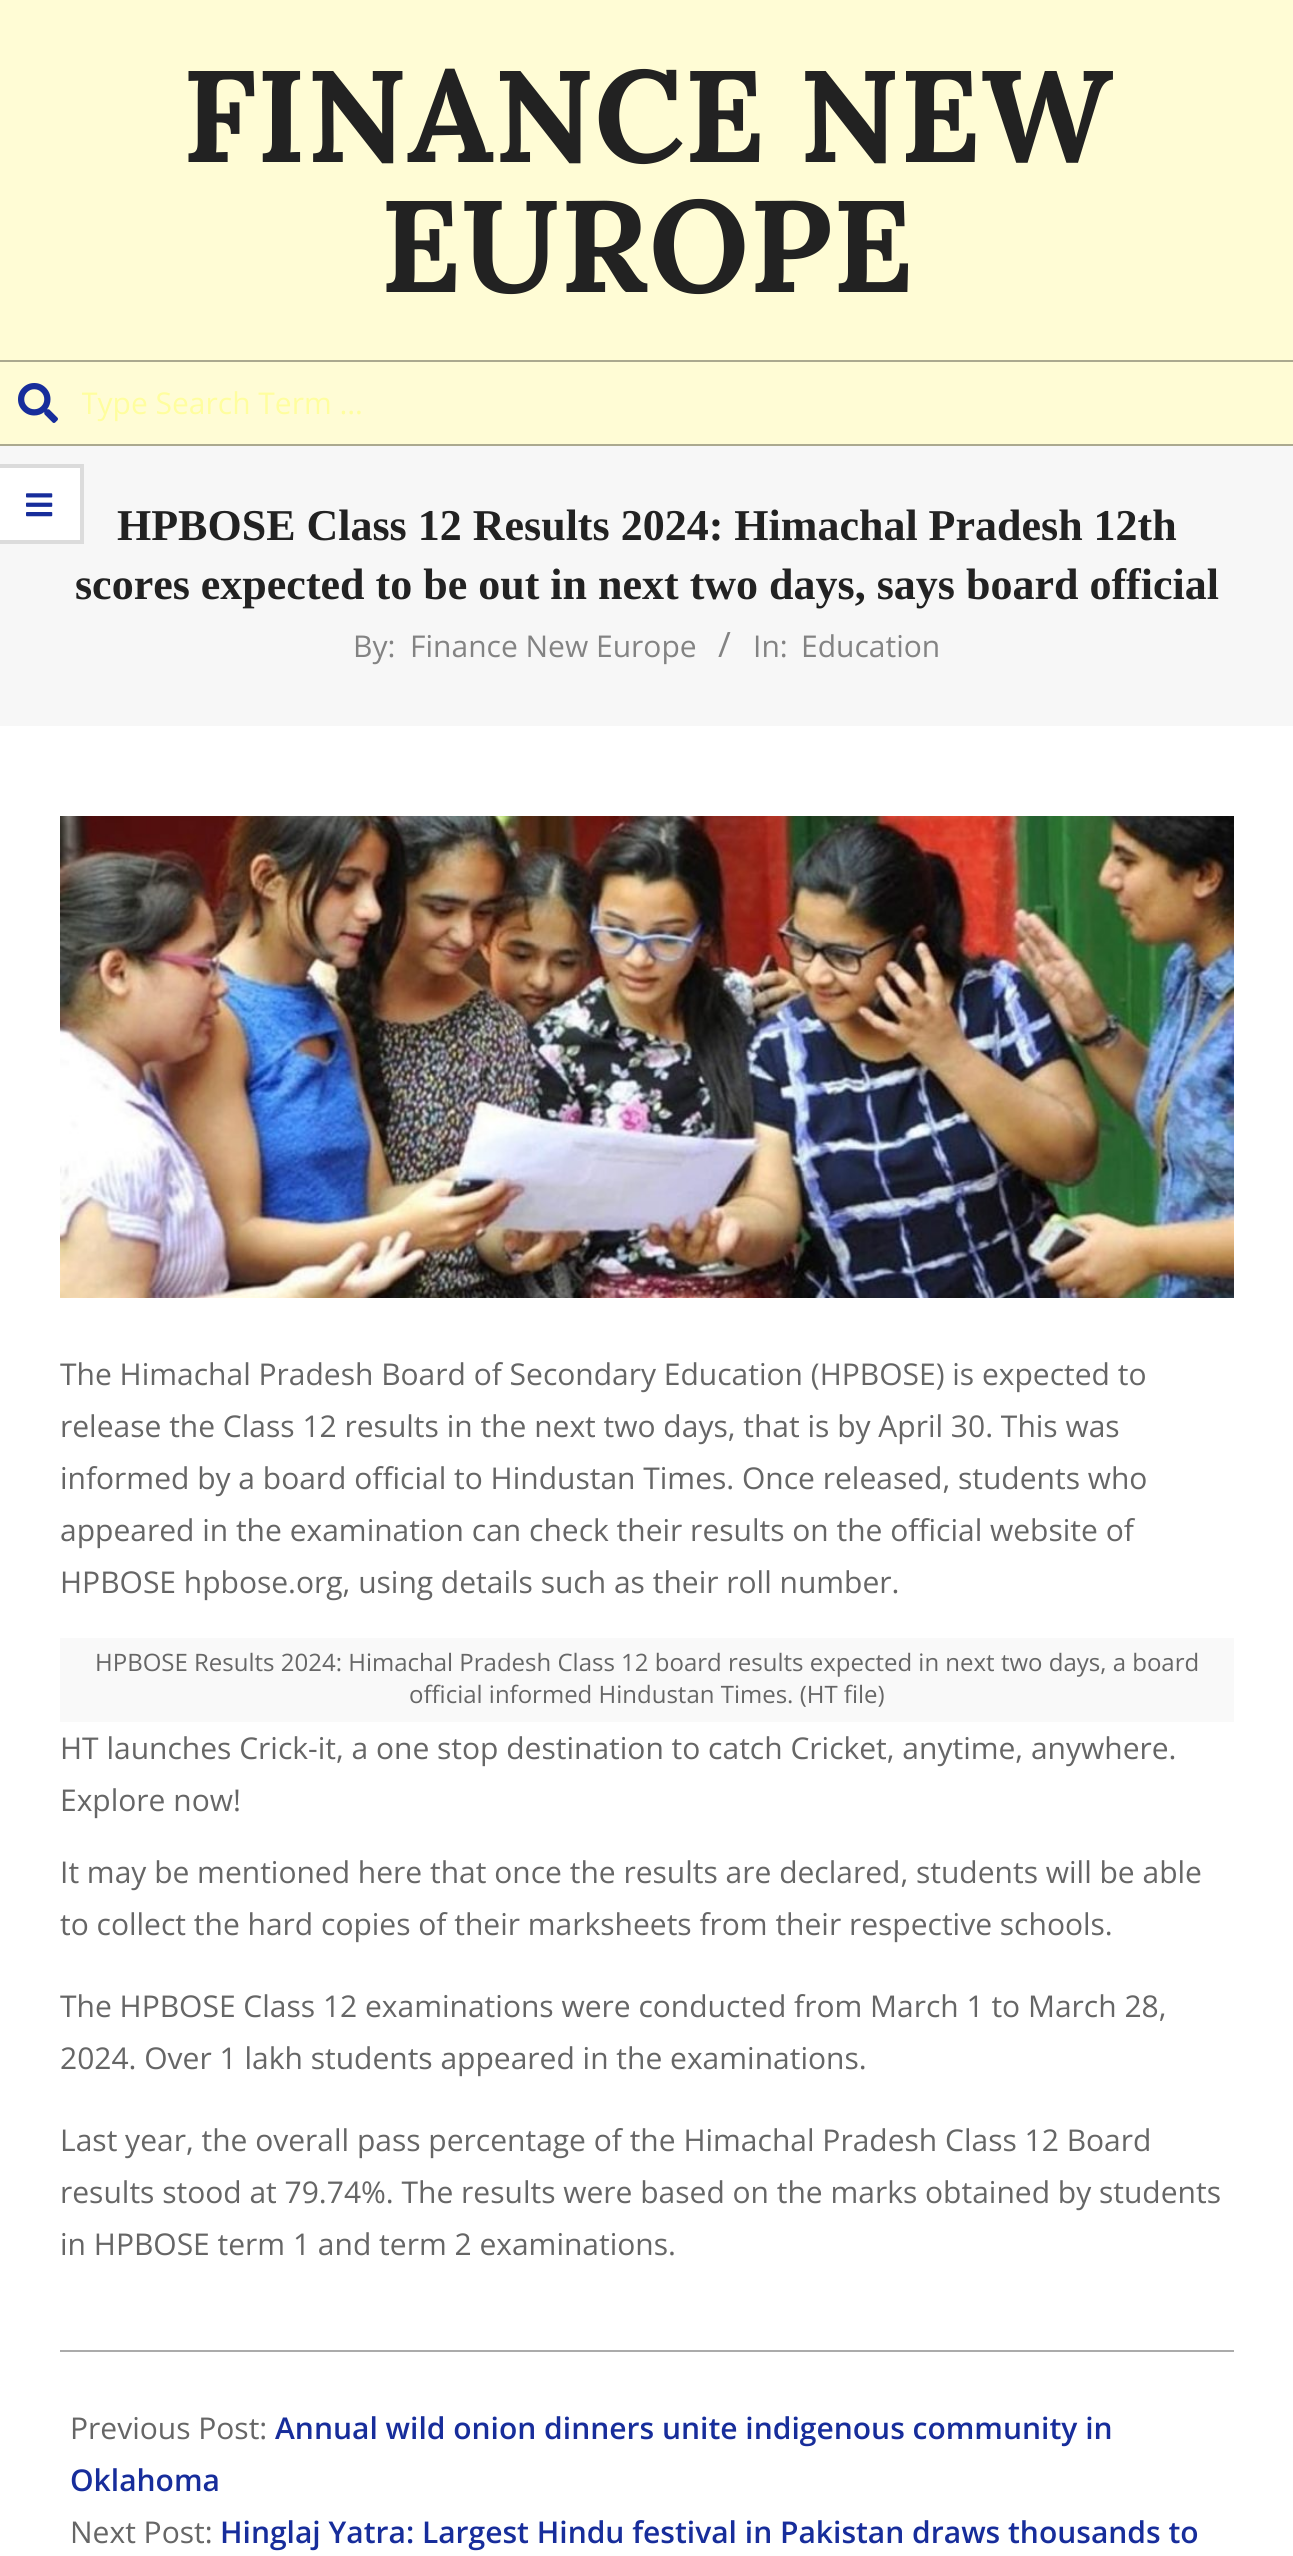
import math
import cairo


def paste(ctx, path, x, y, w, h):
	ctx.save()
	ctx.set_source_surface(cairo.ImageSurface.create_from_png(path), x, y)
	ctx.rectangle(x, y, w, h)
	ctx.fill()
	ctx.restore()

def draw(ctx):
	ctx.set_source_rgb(1, 0.988, 0.835)
	ctx.paint()
	ctx.set_source_rgb(0.671, 0.663, 0.561)
	ctx.rectangle(0, 444, 1293, 2)
	ctx.fill()
	ctx.select_font_face('Lora', cairo.FONT_SLANT_NORMAL, cairo.FONT_WEIGHT_BOLD)
	ctx.set_font_size(130)
	ctx.set_source_rgb(0.133, 0.133, 0.133)
	ctx.move_to(182, 162)
	ctx.show_text('FINANCE NEW')
	ctx.move_to(380, 292)
	ctx.show_text('EUROPE')
	ctx.set_source_rgb(0.671, 0.663, 0.561)
	ctx.rectangle(0, 360, 1293, 2)
	ctx.fill()
	paste(ctx, 'media/1.png', 18, 383, 40, 40)
	ctx.save()
	ctx.rectangle(82, 382, 1176, 40)
	ctx.clip()
	ctx.select_font_face('Open Sans')
	ctx.set_font_size(30)
	ctx.set_source_rgb(1, 0.996, 0.62)
	ctx.move_to(81, 414)
	ctx.show_text('Type Search Term …')
	ctx.restore()
	ctx.set_source_rgb(0.965, 0.965, 0.965)
	ctx.rectangle(0, 446, 1293, 280)
	ctx.fill()
	ctx.set_source_rgb(1, 1, 1)
	ctx.rectangle(0, 464, 84, 80)
	ctx.fill()
	ctx.set_source_rgb(0.859, 0.859, 0.859)
	ctx.new_path()
	ctx.move_to(0, 464)
	ctx.line_to(84, 464)
	ctx.line_to(80, 468)
	ctx.line_to(0, 468)
	ctx.close_path()
	ctx.fill()
	ctx.set_source_rgba(0, 0, 0, 0.14)
	ctx.new_path()
	ctx.move_to(84, 464)
	ctx.line_to(84, 544)
	ctx.line_to(80, 540)
	ctx.line_to(80, 468)
	ctx.close_path()
	ctx.fill()
	ctx.new_path()
	ctx.move_to(84, 544)
	ctx.line_to(0, 544)
	ctx.line_to(0, 540)
	ctx.line_to(80, 540)
	ctx.close_path()
	ctx.fill()
	paste(ctx, 'media/2.png', 26, 493, 27, 24)
	ctx.set_source_rgb(1, 1, 1)
	ctx.rectangle(0, 726, 1293, 1830)
	ctx.fill()
	ctx.select_font_face('Liberation Serif', cairo.FONT_SLANT_NORMAL, cairo.FONT_WEIGHT_BOLD)
	ctx.set_font_size(44)
	ctx.set_source_rgb(0.133, 0.133, 0.133)
	ctx.move_to(117, 540)
	ctx.show_text('HPBOSE Class 12 Results 2024: Himachal Pradesh 12th')
	ctx.move_to(75, 599)
	ctx.show_text('scores expected to be out in next two days, says board official')
	ctx.select_font_face('Open Sans')
	ctx.set_font_size(30)
	ctx.set_source_rgb(0.514, 0.514, 0.514)
	ctx.move_to(353, 657)
	ctx.show_text('By:')
	ctx.move_to(410, 657)
	ctx.show_text('Finance New Europe')
	ctx.set_font_size(35)
	ctx.move_to(718, 657)
	ctx.show_text('/')
	ctx.set_font_size(30)
	ctx.move_to(753, 657)
	ctx.show_text('In:')
	ctx.move_to(801, 657)
	ctx.show_text('Education')
	paste(ctx, 'media/3.png', 60, 816, 1174, 482)
	ctx.set_source_rgb(0.671, 0.671, 0.671)
	ctx.rectangle(60, 2350, 1174, 2)
	ctx.fill()
	ctx.set_source_rgb(0.4, 0.4, 0.4)
	for x, y, s in [
		(60, 1385, 'The Himachal Pradesh Board of Secondary Education (HPBOSE) is expected to'),
		(60, 1437, 'release the Class 12 results in the next two days, that is by April 30. This was'),
		(60, 1489, 'informed by a board official to Hindustan Times. Once released, students who'),
		(60, 1541, 'appeared in the examination can check their results on the official website of'),
		(60, 1593, 'HPBOSE hpbose.org, using details such as their roll number.'),
	]:
		ctx.move_to(x, y)
		ctx.show_text(s)
	ctx.set_source_rgb(0.973, 0.973, 0.973)
	ctx.rectangle(60, 1638, 1174, 84)
	ctx.fill()
	ctx.set_font_size(24)
	ctx.set_source_rgb(0.4, 0.4, 0.4)
	ctx.move_to(95, 1671)
	ctx.show_text('HPBOSE Results 2024: Himachal Pradesh Class 12 board results expected in next two days, a board')
	ctx.move_to(409, 1703)
	ctx.show_text('official informed Hindustan Times. (HT file)')
	ctx.set_font_size(30)
	for x, y, s in [
		(60, 1759, 'HT launches Crick-it, a one stop destination to catch Cricket, anytime, anywhere.'),
		(60, 1811, 'Explore now!'),
		(60, 1883, 'It may be mentioned here that once the results are declared, students will be able'),
		(60, 1935, 'to collect the hard copies of their marksheets from their respective schools.'),
		(60, 2017, 'The HPBOSE Class 12 examinations were conducted from March 1 to March 28,'),
		(60, 2069, '2024. Over 1 lakh students appeared in the examinations.'),
		(60, 2151, 'Last year, the overall pass percentage of the Himachal Pradesh Class 12 Board'),
		(60, 2203, 'results stood at 79.74%. The results were based on the marks obtained by students'),
		(60, 2255, 'in HPBOSE term 1 and term 2 examinations.'),
		(70, 2439, 'Previous Post:'),
	]:
		ctx.move_to(x, y)
		ctx.show_text(s)
	ctx.select_font_face('Open Sans SemiBold')
	ctx.set_source_rgb(0.09, 0.176, 0.608)
	ctx.move_to(275, 2439)
	ctx.show_text('Annual wild onion dinners unite indigenous community in')
	ctx.move_to(70, 2491)
	ctx.show_text('Oklahoma')
	ctx.select_font_face('Open Sans')
	ctx.set_source_rgb(0.4, 0.4, 0.4)
	ctx.move_to(70, 2543)
	ctx.show_text('Next Post:')
	ctx.select_font_face('Open Sans SemiBold')
	ctx.set_source_rgb(0.09, 0.176, 0.608)
	ctx.move_to(220, 2543)
	ctx.show_text('Hinglaj Yatra: Largest Hindu festival in Pakistan draws thousands to')


surface = cairo.ImageSurface(cairo.FORMAT_RGB24, 1293, 2556)
ctx = cairo.Context(surface)
options = cairo.FontOptions()
options.set_hint_metrics(cairo.HINT_METRICS_OFF)
options.set_hint_style(cairo.HINT_STYLE_NONE)
ctx.set_font_options(options)
ctx.set_miter_limit(4)
draw(ctx)
surface.write_to_png('image.png')
